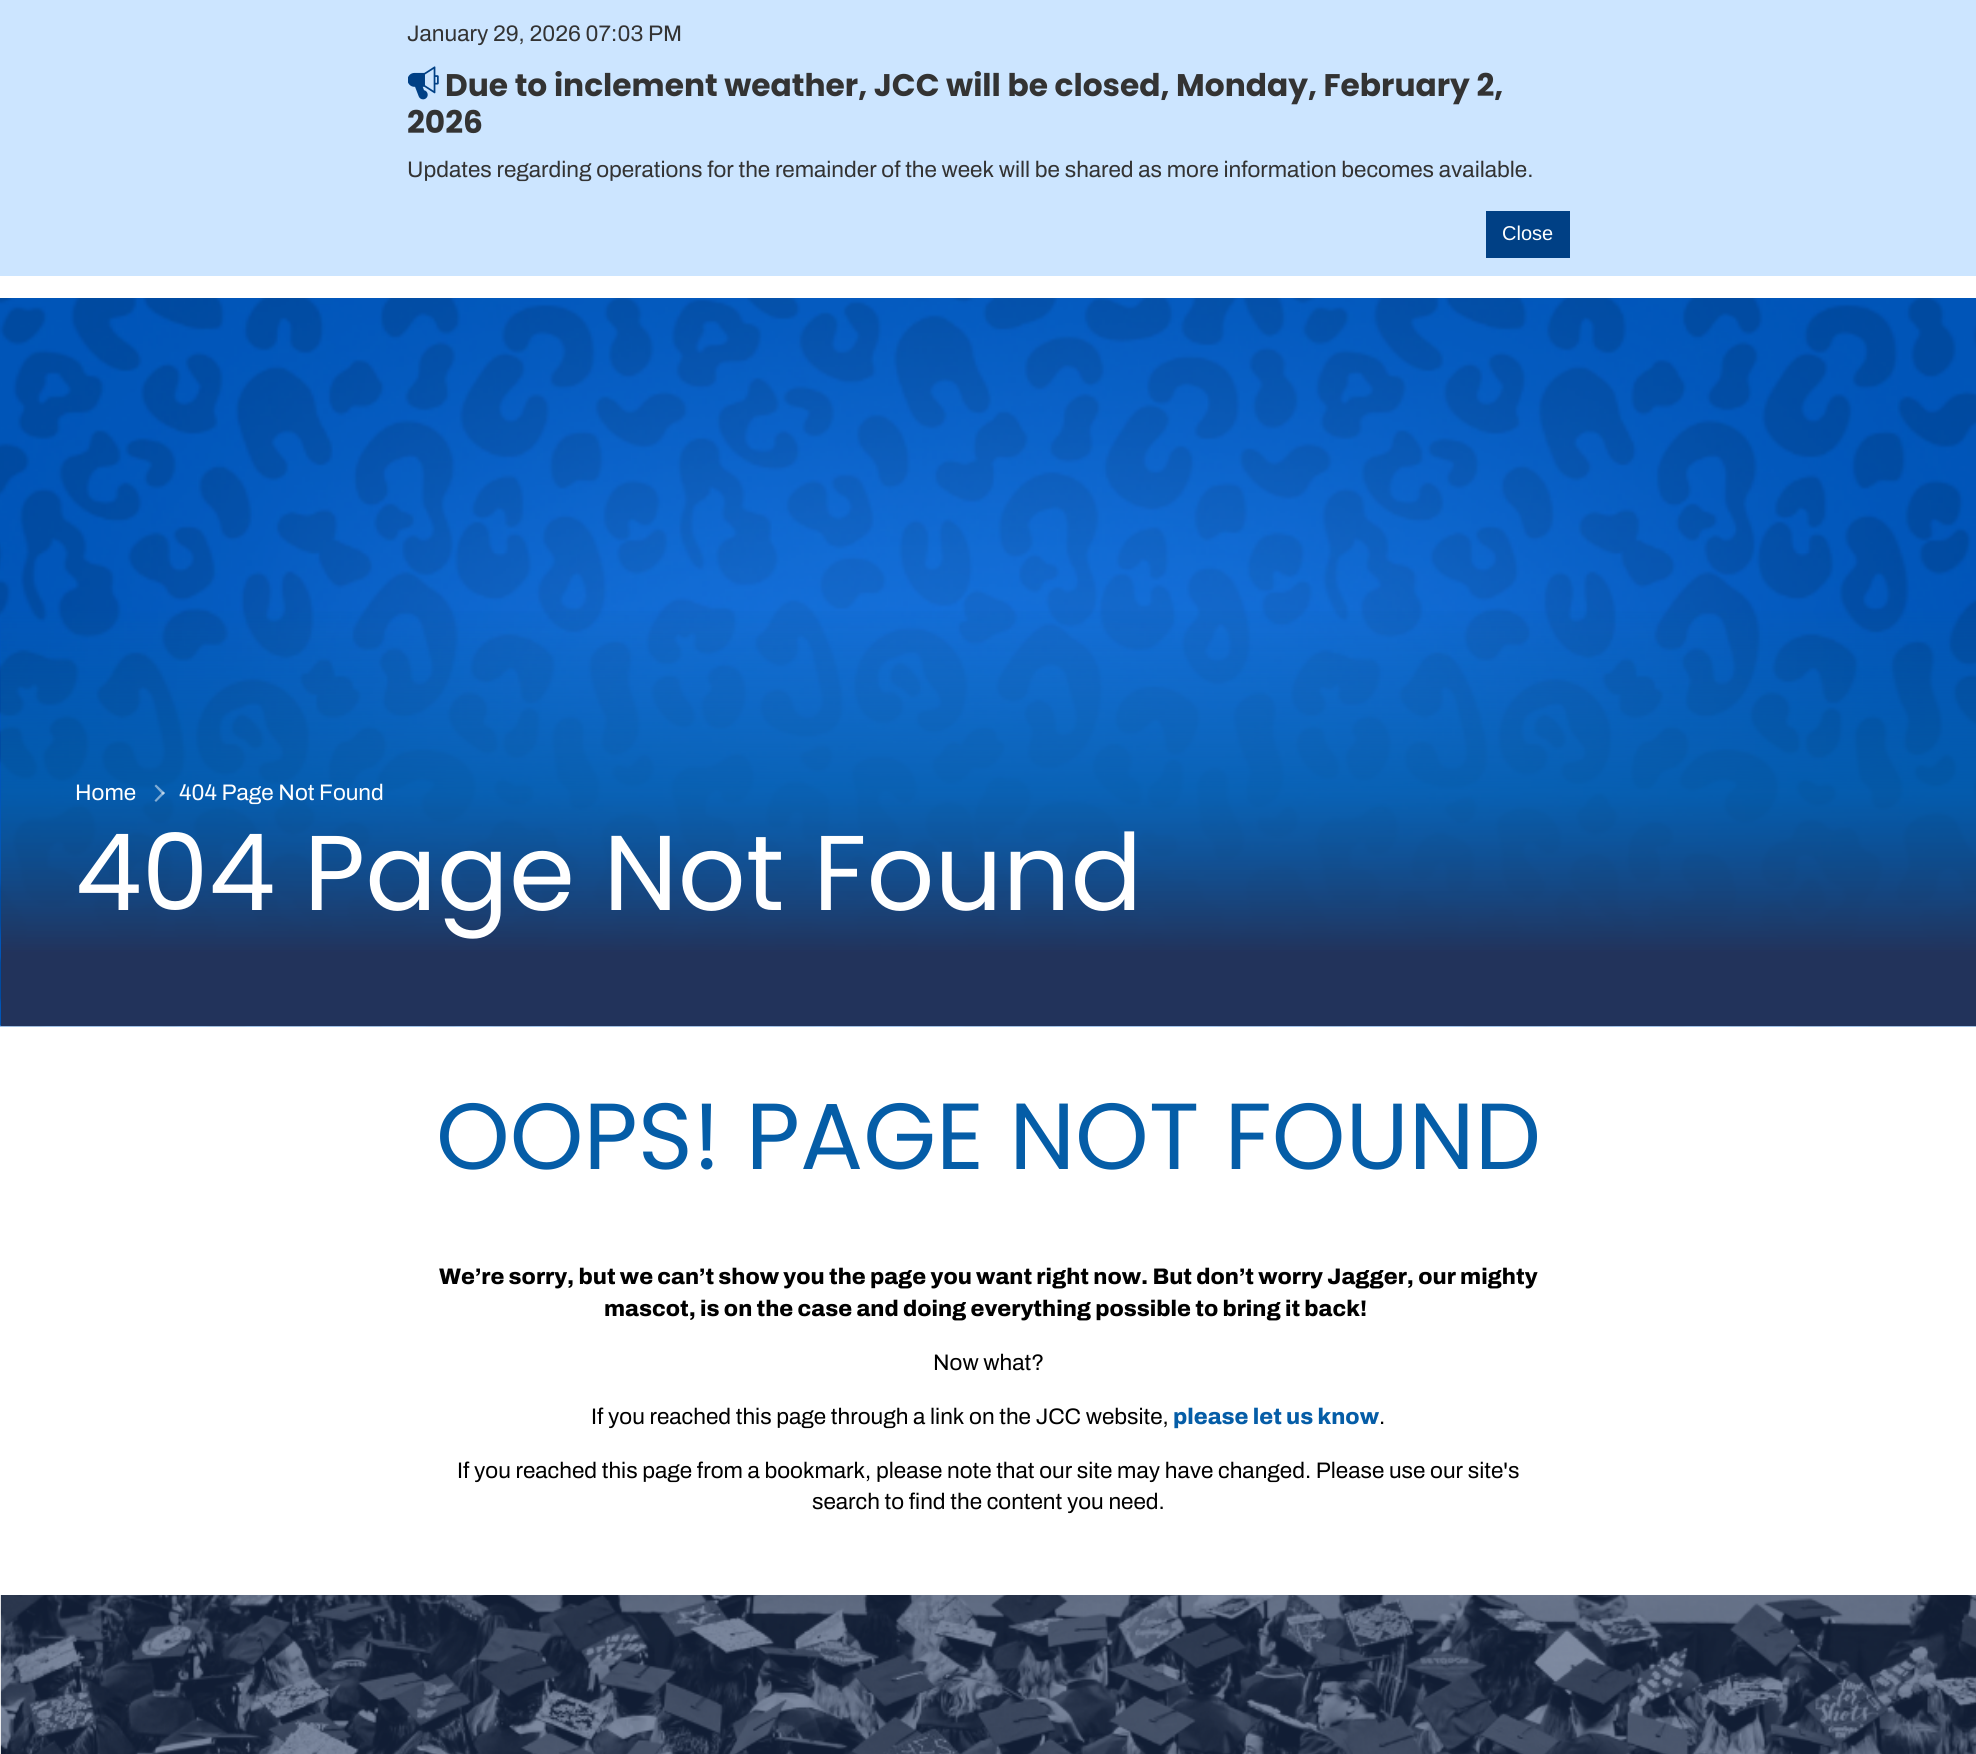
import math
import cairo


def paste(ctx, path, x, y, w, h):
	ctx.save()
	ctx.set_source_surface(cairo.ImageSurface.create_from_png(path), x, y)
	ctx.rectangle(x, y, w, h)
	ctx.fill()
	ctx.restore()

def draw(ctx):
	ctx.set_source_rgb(1, 1, 1)
	ctx.paint()
	ctx.set_source_rgb(0.8, 0.898, 1)
	ctx.rectangle(0, 0, 1976, 276)
	ctx.fill()
	ctx.select_font_face('Archivo')
	ctx.set_font_size(22.5)
	ctx.set_source_rgb(0.2, 0.2, 0.2)
	ctx.move_to(407, 41)
	ctx.show_text('January 29, 2026 07:03 PM')
	paste(ctx, 'media/1.png', 408, 66, 31, 34)
	ctx.select_font_face('Poppins', cairo.FONT_SLANT_NORMAL, cairo.FONT_WEIGHT_BOLD)
	ctx.set_font_size(31.25)
	ctx.move_to(445, 96)
	ctx.show_text('Due to inclement weather, JCC will be closed, Monday, February 2,')
	ctx.move_to(407, 133)
	ctx.show_text('2026')
	ctx.select_font_face('Archivo')
	ctx.set_font_size(22.5)
	ctx.move_to(407, 177)
	ctx.show_text('Updates regarding operations for the remainder of the week will be shared as more information becomes available.')
	ctx.set_source_rgb(0, 0.251, 0.522)
	ctx.rectangle(1486, 211, 84, 47)
	ctx.fill()
	ctx.select_font_face('Liberation Sans')
	ctx.set_font_size(20)
	ctx.set_source_rgb(1, 1, 1)
	ctx.move_to(1502, 240)
	ctx.show_text('Close')
	paste(ctx, 'media/2.png', 0, 298, 1976, 729)
	gradient = cairo.LinearGradient(989, 297, 989, 1026)
	gradient.add_color_stop_rgba(0.41, 0.02, 0.365, 0.655, 0)
	gradient.add_color_stop_rgba(0.68, 0.02, 0.365, 0.655, 0.7)
	gradient.add_color_stop_rgba(0.9, 0.133, 0.2, 0.357, 1)
	ctx.set_source(gradient)
	ctx.rectangle(1, 611, 1975, 415)
	ctx.fill()
	ctx.select_font_face('Archivo')
	ctx.set_font_size(22.5)
	ctx.set_source_rgb(1, 1, 1)
	ctx.move_to(75, 800)
	ctx.show_text('Home')
	ctx.set_source_rgba(1, 1, 1, 0.5)
	ctx.new_path()
	ctx.move_to(156, 784.5)
	ctx.line_to(165, 793)
	ctx.line_to(163, 795)
	ctx.line_to(154.5, 786)
	ctx.close_path()
	ctx.fill()
	ctx.new_path()
	ctx.move_to(163, 791.5)
	ctx.line_to(165, 793)
	ctx.line_to(156, 802)
	ctx.line_to(154.5, 800.5)
	ctx.close_path()
	ctx.fill()
	ctx.set_source_rgb(1, 1, 1)
	ctx.move_to(179, 800)
	ctx.show_text('404 Page Not Found')
	ctx.select_font_face('Poppins')
	ctx.set_font_size(106.25)
	ctx.move_to(75, 910)
	ctx.show_text('404 Page Not Found')
	ctx.set_font_size(93.75)
	ctx.set_source_rgb(0.02, 0.365, 0.655)
	ctx.move_to(436, 1169)
	ctx.show_text('OOPS! PAGE NOT FOUND')
	ctx.select_font_face('Archivo ExtraBold')
	ctx.set_font_size(22.5)
	ctx.set_source_rgb(0, 0, 0)
	ctx.move_to(439, 1284)
	ctx.show_text('We’re sorry, but we can’t show you the page you want right now. But don’t worry Jagger, our mighty')
	ctx.move_to(604, 1316)
	ctx.show_text('mascot, is on the case and doing everything possible to bring it back!')
	ctx.select_font_face('Archivo')
	ctx.move_to(933, 1370)
	ctx.show_text('Now what?')
	ctx.move_to(591, 1424)
	ctx.show_text('If you reached this page through a link on the JCC website,')
	ctx.select_font_face('Archivo ExtraBold')
	ctx.set_source_rgb(0.02, 0.365, 0.655)
	ctx.move_to(1173, 1424)
	ctx.show_text('please let us know')
	ctx.select_font_face('Archivo')
	ctx.set_source_rgb(0, 0, 0)
	for x, y, s in [
		(1379, 1424, '.'),
		(457, 1478, 'If you reached this page from a bookmark, please note that our site may have changed. Please use our site\'s'),
		(812, 1509, 'search to find the content you need.'),
	]:
		ctx.move_to(x, y)
		ctx.show_text(s)
	paste(ctx, 'media/3.png', 0, 1595, 1976, 159)


surface = cairo.ImageSurface(cairo.FORMAT_RGB24, 1976, 1754)
ctx = cairo.Context(surface)
options = cairo.FontOptions()
options.set_hint_metrics(cairo.HINT_METRICS_OFF)
options.set_hint_style(cairo.HINT_STYLE_NONE)
ctx.set_font_options(options)
ctx.set_miter_limit(4)
draw(ctx)
surface.write_to_png('image.png')
